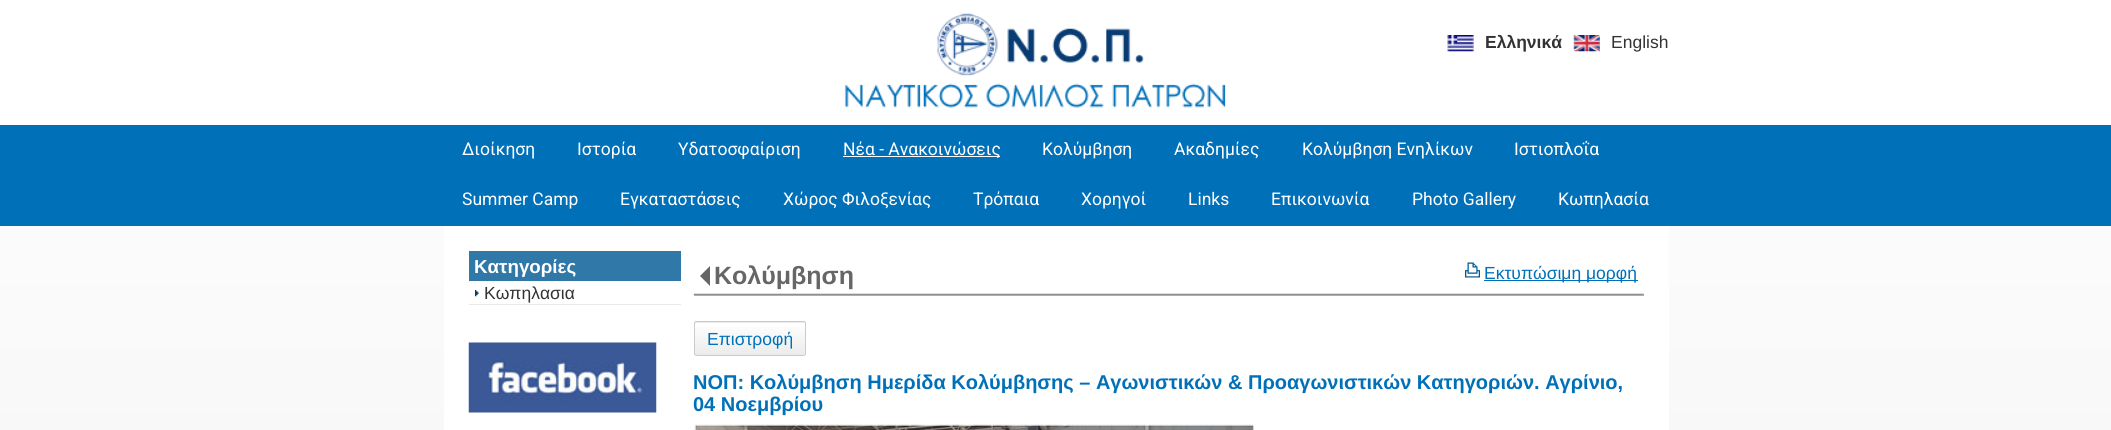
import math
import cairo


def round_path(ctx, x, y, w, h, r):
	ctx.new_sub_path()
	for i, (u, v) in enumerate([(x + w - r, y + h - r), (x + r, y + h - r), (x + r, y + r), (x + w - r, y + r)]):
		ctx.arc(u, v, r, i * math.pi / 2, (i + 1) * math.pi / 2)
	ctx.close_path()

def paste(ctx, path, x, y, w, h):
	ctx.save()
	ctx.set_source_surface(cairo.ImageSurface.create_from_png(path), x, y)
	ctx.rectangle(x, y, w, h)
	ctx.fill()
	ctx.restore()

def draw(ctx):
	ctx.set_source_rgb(1, 1, 1)
	ctx.paint()
	gradient = cairo.LinearGradient(1056, 0, 1056, 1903)
	gradient.add_color_stop_rgba(0, 1, 1, 1, 1)
	gradient.add_color_stop_rgba(1, 0.882, 0.882, 0.882, 1)
	ctx.set_source(gradient)
	ctx.rectangle(0, 226, 2111, 204)
	ctx.fill()
	paste(ctx, 'media/1.png', 844, 13, 382, 95)
	paste(ctx, 'media/2.png', 1447, 35, 27, 17)
	ctx.select_font_face('Liberation Sans', cairo.FONT_SLANT_NORMAL, cairo.FONT_WEIGHT_BOLD)
	ctx.set_font_size(17.5)
	ctx.set_source_rgb(0.2, 0.2, 0.2)
	ctx.move_to(1485, 48)
	ctx.show_text('Ελληνικά')
	paste(ctx, 'media/3.png', 1573, 35, 27, 17)
	ctx.select_font_face('Liberation Sans')
	ctx.move_to(1611, 48)
	ctx.show_text('English')
	ctx.set_source_rgb(0, 0.439, 0.725)
	ctx.rectangle(0, 125, 2111, 101)
	ctx.fill()
	ctx.select_font_face('Roboto')
	ctx.set_source_rgb(1, 1, 1)
	for x, y, s in [
		(462, 155, 'Διοίκηση'),
		(577, 155, 'Ιστορία'),
		(678, 155, 'Υδατοσφαίριση'),
	]:
		ctx.move_to(x, y)
		ctx.show_text(s)
	ctx.rectangle(843, 156, 157, 1)
	ctx.fill()
	for x, y, s in [
		(843, 155, 'Νέα - Ανακοινώσεις'),
		(1042, 155, 'Κολύμβηση'),
		(1174, 155, 'Ακαδημίες'),
		(1302, 155, 'Κολύμβηση Ενηλίκων'),
		(1514, 155, 'Ιστιοπλοΐα'),
		(462, 205, 'Summer Camp'),
		(620, 205, 'Εγκαταστάσεις'),
		(783, 205, 'Χώρος Φιλοξενίας'),
		(973, 205, 'Τρόπαια'),
		(1081, 205, 'Χορηγοί'),
		(1188, 205, 'Links'),
		(1271, 205, 'Επικοινωνία'),
		(1412, 205, 'Photo Gallery'),
		(1558, 205, 'Κωπηλασία'),
	]:
		ctx.move_to(x, y)
		ctx.show_text(s)
	ctx.rectangle(444, 226, 1225, 204)
	ctx.fill()
	ctx.set_source_rgb(0.184, 0.471, 0.659)
	ctx.rectangle(469, 251, 212, 30)
	ctx.fill()
	ctx.select_font_face('Liberation Sans', cairo.FONT_SLANT_NORMAL, cairo.FONT_WEIGHT_BOLD)
	ctx.set_font_size(18.75)
	ctx.set_source_rgb(1, 1, 1)
	ctx.move_to(474, 273)
	ctx.show_text('Κατηγορίες')
	ctx.set_source_rgb(0.914, 0.914, 0.914)
	ctx.rectangle(469, 304, 212, 1)
	ctx.fill()
	paste(ctx, 'media/4.png', 475, 290, 4, 7)
	ctx.select_font_face('Liberation Sans')
	ctx.set_font_size(17.5)
	ctx.set_source_rgb(0.2, 0.2, 0.2)
	ctx.move_to(484, 299)
	ctx.show_text('Κωπηλασια')
	paste(ctx, 'media/5.png', 468, 342, 189, 71)
	paste(ctx, 'media/6.png', 693, 293, 951, 2)
	ctx.set_source_rgb(0.69, 0.678, 0.678)
	ctx.rectangle(694, 295, 950, 1)
	ctx.fill()
	ctx.set_source_rgb(0.4, 0.4, 0.4)
	ctx.new_path()
	ctx.move_to(710, 266)
	ctx.line_to(710, 286)
	ctx.line_to(700, 276)
	ctx.close_path()
	ctx.fill()
	ctx.select_font_face('Liberation Sans', cairo.FONT_SLANT_NORMAL, cairo.FONT_WEIGHT_BOLD)
	ctx.set_font_size(25)
	ctx.move_to(714, 284)
	ctx.show_text('Κολύμβηση')
	paste(ctx, 'media/7.png', 1465, 262, 15, 16)
	ctx.set_source_rgb(0, 0.439, 0.725)
	ctx.rectangle(1484, 280, 154, 1)
	ctx.fill()
	ctx.select_font_face('Liberation Sans')
	ctx.set_font_size(17.5)
	ctx.move_to(1484, 279)
	ctx.show_text('Εκτυπώσιμη μορφή')
	ctx.save()
	round_path(ctx, 694, 321, 112, 35, 2.5)
	ctx.clip()
	gradient = cairo.LinearGradient(750, 290, 750, 323)
	gradient.add_color_stop_rgba(0, 1, 1, 1, 1)
	gradient.add_color_stop_rgba(1, 0.922, 0.922, 0.922, 1)
	ctx.set_source(gradient)
	ctx.rectangle(694, 321, 112, 2)
	ctx.fill()
	ctx.restore()
	gradient = cairo.LinearGradient(750, 323, 750, 355)
	gradient.add_color_stop_rgba(0, 1, 1, 1, 1)
	gradient.add_color_stop_rgba(1, 0.922, 0.922, 0.922, 1)
	ctx.set_source(gradient)
	ctx.rectangle(694, 327, 112, 28)
	ctx.fill()
	round_path(ctx, 694.5, 321.5, 111, 34, 2)
	ctx.set_source_rgb(0.796, 0.796, 0.796)
	ctx.set_line_width(1)
	ctx.stroke()
	ctx.set_source_rgb(0, 0.439, 0.725)
	ctx.move_to(707, 345)
	ctx.show_text('Επιστροφή')
	ctx.select_font_face('Liberation Sans', cairo.FONT_SLANT_NORMAL, cairo.FONT_WEIGHT_BOLD)
	ctx.set_font_size(20)
	ctx.move_to(693, 389)
	ctx.show_text('NOΠ: Κολύμβηση Ημερίδα Κολύμβησης – Αγωνιστικών & Προαγωνιστικών Κατηγοριών. Αγρίνιο,')
	ctx.move_to(693, 411)
	ctx.show_text('04 Νοεμβρίου')
	paste(ctx, 'media/8.png', 694, 424, 560, 6)


surface = cairo.ImageSurface(cairo.FORMAT_RGB24, 2111, 430)
ctx = cairo.Context(surface)
options = cairo.FontOptions()
options.set_hint_metrics(cairo.HINT_METRICS_OFF)
options.set_hint_style(cairo.HINT_STYLE_NONE)
ctx.set_font_options(options)
ctx.set_miter_limit(4)
draw(ctx)
surface.write_to_png('image.png')
